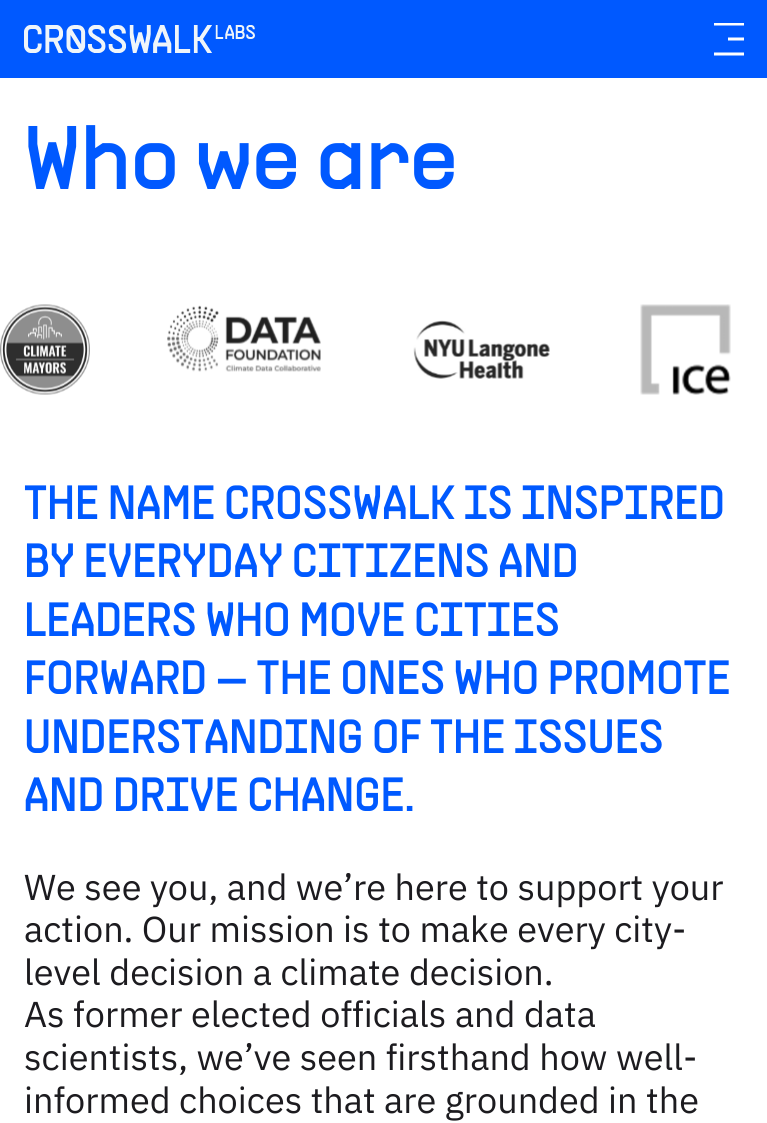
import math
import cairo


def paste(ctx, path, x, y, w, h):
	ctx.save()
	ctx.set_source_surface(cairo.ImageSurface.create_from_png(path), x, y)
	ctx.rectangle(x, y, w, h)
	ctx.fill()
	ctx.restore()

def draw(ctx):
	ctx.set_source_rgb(1, 1, 1)
	ctx.paint()
	ctx.set_source_rgb(0, 0.349, 1)
	ctx.rectangle(0, 0, 767, 78)
	ctx.fill()
	paste(ctx, 'media/1.png', 24, 25, 231, 28)
	ctx.save()
	ctx.rectangle(714, 23, 30, 33)
	ctx.clip()
	ctx.new_path()
	ctx.move_to(714, 24)
	ctx.line_to(744, 24)
	ctx.set_source_rgb(1, 1, 1)
	ctx.set_line_width(3)
	ctx.stroke()
	ctx.restore()
	ctx.new_path()
	ctx.move_to(714, 54)
	ctx.line_to(744, 54)
	ctx.move_to(728, 39)
	ctx.line_to(744, 39)
	ctx.set_source_rgb(1, 1, 1)
	ctx.set_line_width(3)
	ctx.stroke()
	ctx.select_font_face('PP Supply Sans')
	ctx.set_font_size(90)
	ctx.set_source_rgb(0, 0.349, 1)
	ctx.move_to(24, 189)
	ctx.show_text('Who we are')
	paste(ctx, 'media/2.png', 0, 304, 90, 91)
	paste(ctx, 'media/3.png', 167, 305, 154, 67)
	paste(ctx, 'media/4.png', 413, 320, 137, 59)
	paste(ctx, 'media/5.png', 640, 304, 91, 91)
	ctx.set_font_size(48)
	for x, y, s in [
		(24, 519, 'THE NAME CROSSWALK IS INSPIRED'),
		(24, 577, 'BY EVERYDAY CITIZENS AND'),
		(24, 636, 'LEADERS WHO MOVE CITIES'),
		(24, 694, 'FORWARD — THE ONES WHO PROMOTE'),
		(24, 753, 'UNDERSTANDING OF THE ISSUES'),
		(24, 811, 'AND DRIVE CHANGE.'),
	]:
		ctx.move_to(x, y)
		ctx.show_text(s)
	ctx.select_font_face('IBM Plex Sans')
	ctx.set_font_size(36)
	ctx.set_source_rgb(0.11, 0.106, 0.122)
	for x, y, s in [
		(24, 900, 'We see you, and we’re here to support your'),
		(24, 942, 'action. Our mission is to make every city-'),
		(24, 985, 'level decision a climate decision.'),
		(24, 1027, 'As former elected officials and data'),
		(24, 1070, 'scientists, we’ve seen firsthand how well-'),
		(24, 1113, 'informed choices that are grounded in the'),
	]:
		ctx.move_to(x, y)
		ctx.show_text(s)


surface = cairo.ImageSurface(cairo.FORMAT_RGB24, 767, 1123)
ctx = cairo.Context(surface)
options = cairo.FontOptions()
options.set_hint_metrics(cairo.HINT_METRICS_OFF)
options.set_hint_style(cairo.HINT_STYLE_NONE)
ctx.set_font_options(options)
ctx.set_miter_limit(4)
draw(ctx)
surface.write_to_png('image.png')
